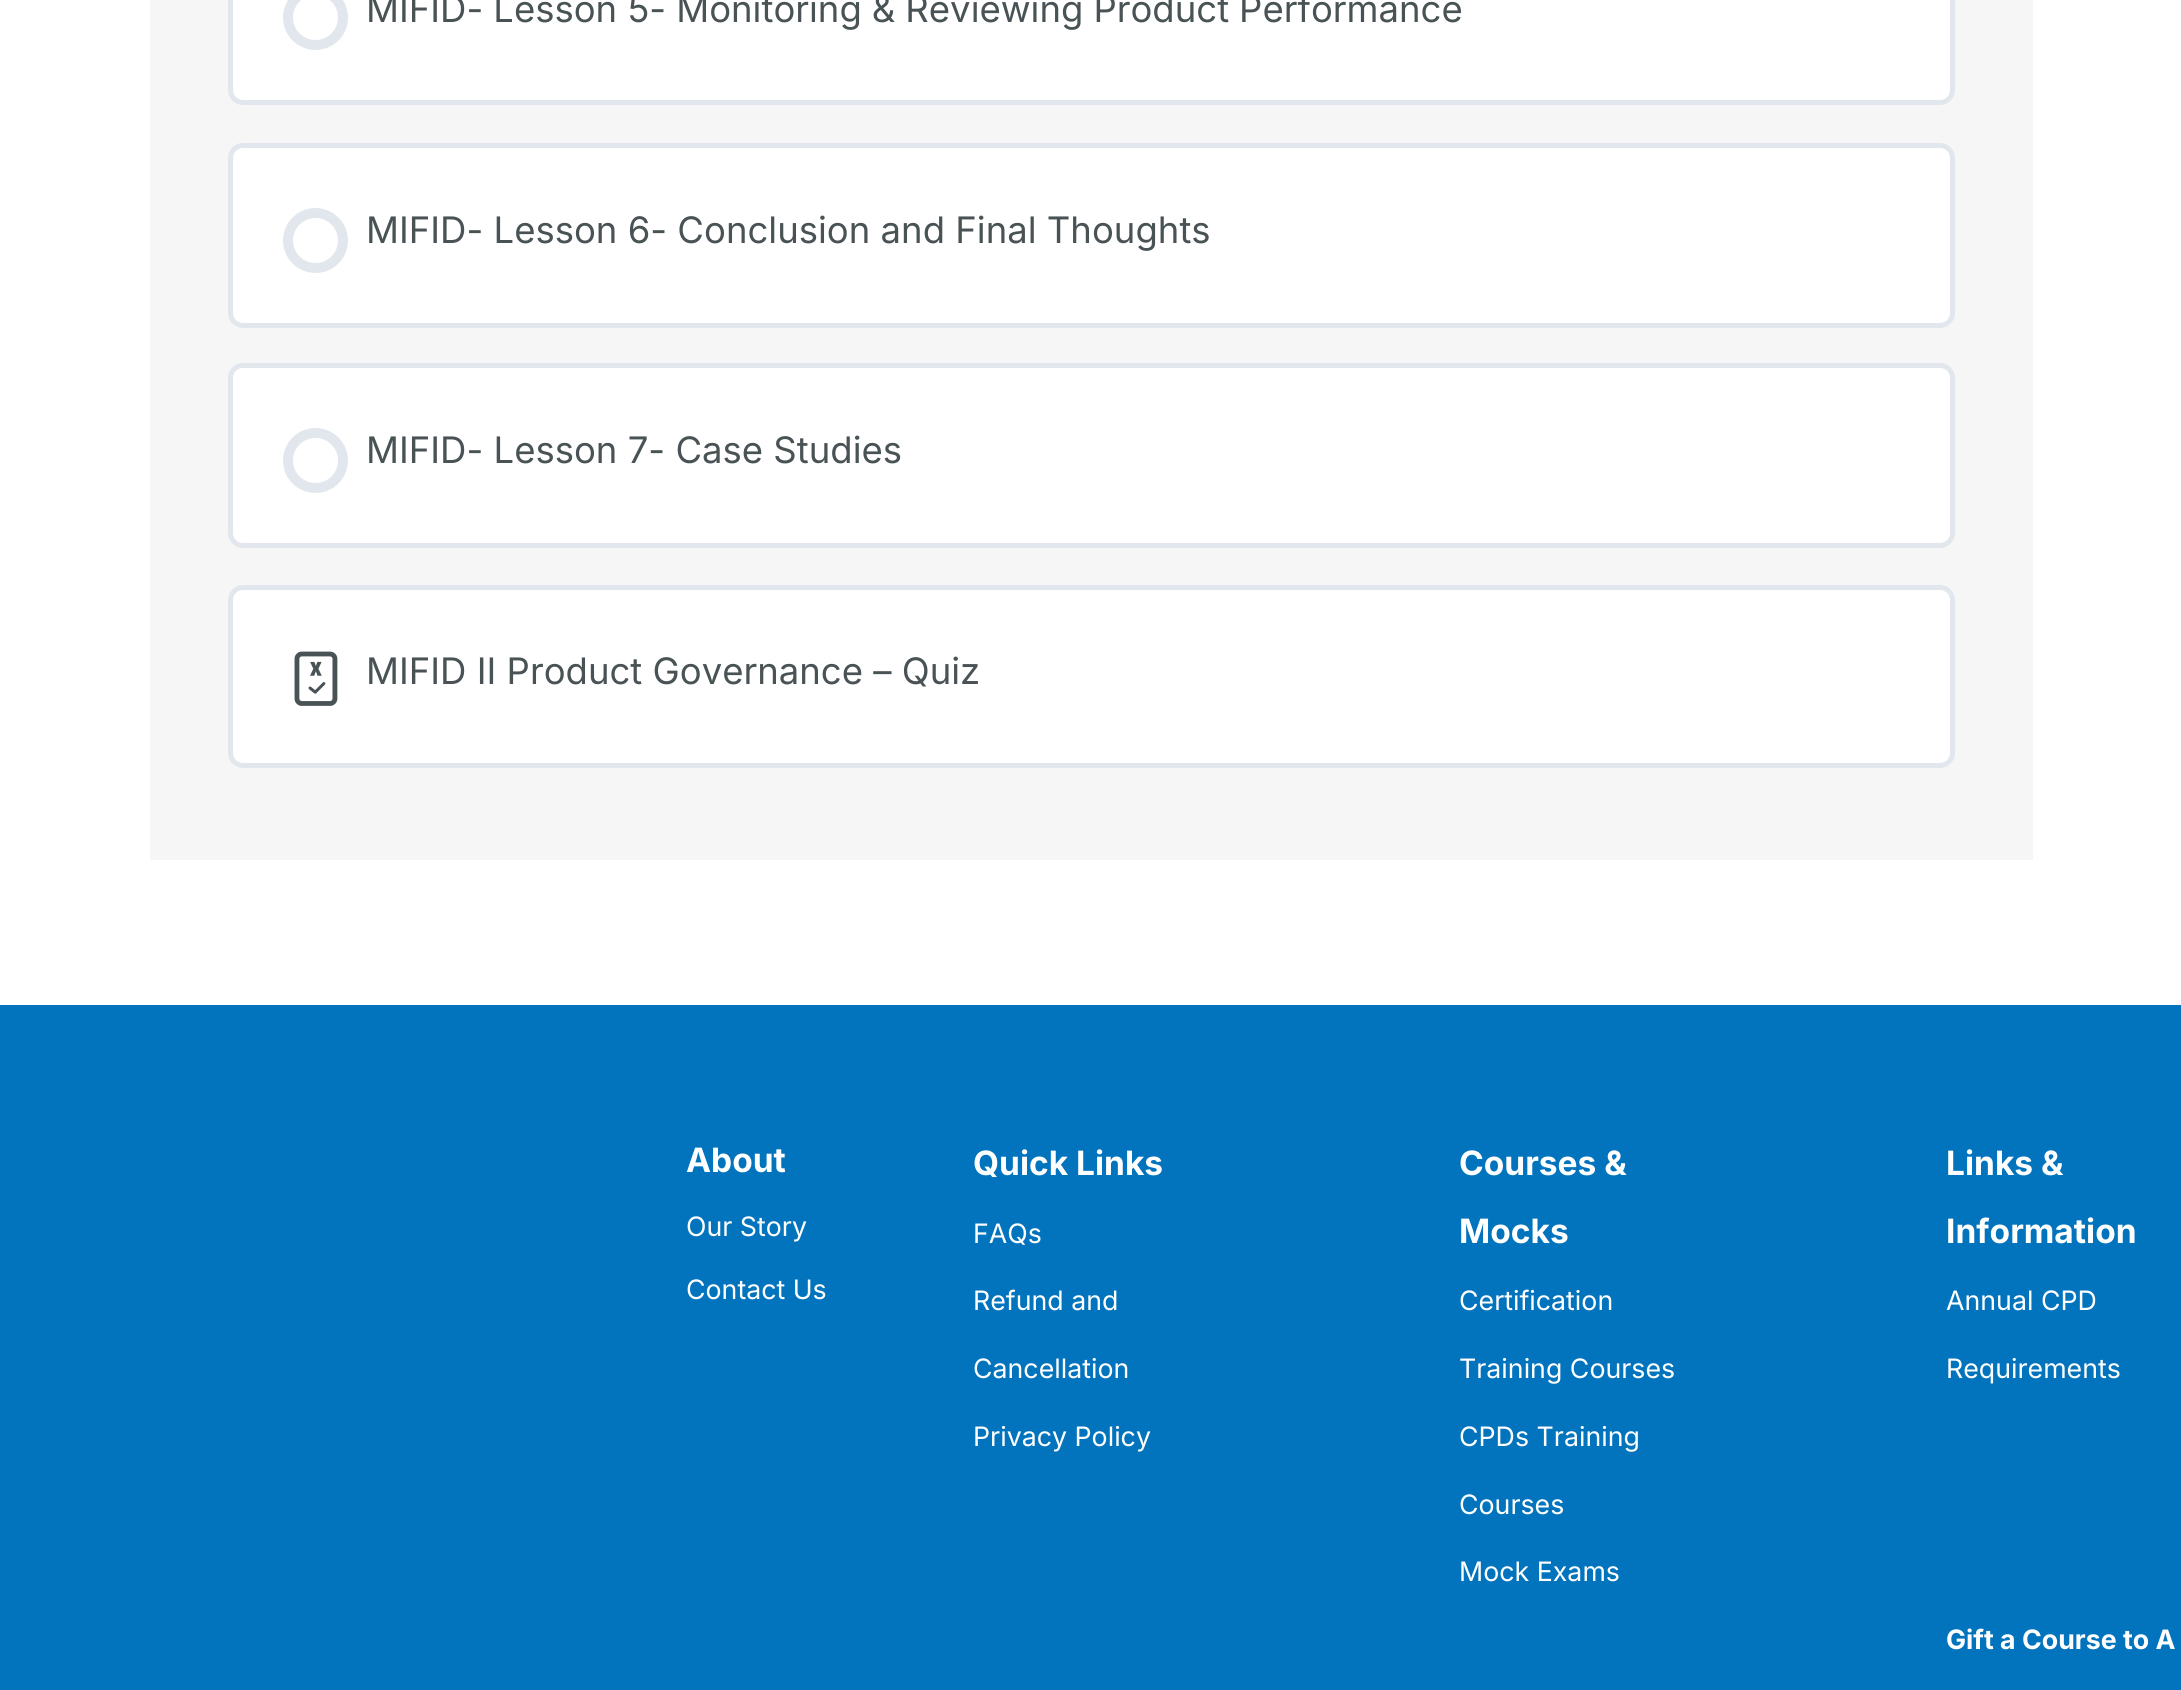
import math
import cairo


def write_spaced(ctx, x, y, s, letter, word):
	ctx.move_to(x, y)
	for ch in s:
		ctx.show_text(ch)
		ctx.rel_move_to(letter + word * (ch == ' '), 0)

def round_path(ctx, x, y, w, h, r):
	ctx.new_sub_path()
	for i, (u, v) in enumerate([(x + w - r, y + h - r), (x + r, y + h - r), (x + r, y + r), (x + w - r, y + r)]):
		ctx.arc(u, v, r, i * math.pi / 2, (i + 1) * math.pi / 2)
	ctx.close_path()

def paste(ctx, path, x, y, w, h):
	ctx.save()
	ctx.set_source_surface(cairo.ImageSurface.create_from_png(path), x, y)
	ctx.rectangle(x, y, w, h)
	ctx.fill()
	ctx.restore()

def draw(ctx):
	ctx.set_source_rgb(1, 1, 1)
	ctx.paint()
	ctx.set_source_rgb(0.961, 0.961, 0.961)
	ctx.rectangle(150, 0, 1883, 860)
	ctx.fill()
	ctx.set_source_rgb(1, 1, 1)
	round_path(ctx, 230.5, -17.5, 1722, 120, 12.5)
	ctx.fill_preserve()
	ctx.set_source_rgb(0.886, 0.906, 0.929)
	ctx.set_line_width(5)
	ctx.stroke()
	ctx.arc(315.5, 17.5, 27.5, 0, 2 * math.pi)
	ctx.set_line_width(10)
	ctx.stroke()
	ctx.select_font_face('Inter')
	ctx.set_font_size(36.5)
	ctx.set_source_rgb(0.286, 0.322, 0.333)
	write_spaced(ctx, 366, 22, 'MIFID- Lesson 5- Monitoring & Reviewing Product Performance', 0, -0.25)
	ctx.set_source_rgb(1, 1, 1)
	round_path(ctx, 230.5, 145.5, 1722, 180, 12.5)
	ctx.fill_preserve()
	ctx.set_source_rgb(0.886, 0.906, 0.929)
	ctx.set_line_width(5)
	ctx.stroke()
	ctx.arc(315.5, 240.5, 27.5, 0, 2 * math.pi)
	ctx.set_line_width(10)
	ctx.stroke()
	ctx.set_source_rgb(0.286, 0.322, 0.333)
	ctx.move_to(366, 243)
	ctx.show_text('MIFID- Lesson 6- Conclusion and Final Thoughts')
	ctx.set_source_rgb(1, 1, 1)
	round_path(ctx, 230.5, 365.5, 1722, 180, 12.5)
	ctx.fill_preserve()
	ctx.set_source_rgb(0.886, 0.906, 0.929)
	ctx.set_line_width(5)
	ctx.stroke()
	ctx.arc(315.5, 460.5, 27.5, 0, 2 * math.pi)
	ctx.set_line_width(10)
	ctx.stroke()
	ctx.set_source_rgb(0.286, 0.322, 0.333)
	ctx.move_to(366, 463)
	ctx.show_text('MIFID- Lesson 7- Case Studies')
	ctx.set_source_rgb(1, 1, 1)
	round_path(ctx, 230.5, 587.5, 1722, 178, 12.5)
	ctx.fill_preserve()
	ctx.set_source_rgb(0.886, 0.906, 0.929)
	ctx.set_line_width(5)
	ctx.stroke()
	paste(ctx, 'media/1.png', 294, 651, 44, 55)
	ctx.set_source_rgb(0.286, 0.322, 0.333)
	ctx.move_to(366, 684)
	ctx.show_text('MIFID II Product Governance – Quiz')
	ctx.set_source_rgb(0.008, 0.455, 0.745)
	ctx.rectangle(0, 1005, 2181, 685)
	ctx.fill()
	ctx.select_font_face('Inter', cairo.FONT_SLANT_NORMAL, cairo.FONT_WEIGHT_BOLD)
	ctx.set_font_size(33.5)
	ctx.set_source_rgb(1, 1, 1)
	ctx.move_to(686, 1172)
	ctx.show_text('About')
	ctx.select_font_face('Inter')
	ctx.set_font_size(26.75)
	ctx.move_to(686, 1236)
	ctx.show_text('Our Story')
	ctx.move_to(686, 1299)
	ctx.show_text('Contact Us')
	ctx.select_font_face('Inter', cairo.FONT_SLANT_NORMAL, cairo.FONT_WEIGHT_BOLD)
	ctx.set_font_size(33.5)
	ctx.move_to(973, 1175)
	ctx.show_text('Quick Links')
	ctx.select_font_face('Inter')
	ctx.set_font_size(26.75)
	for x, y, s in [
		(973, 1243, 'FAQs'),
		(973, 1310, 'Refund and'),
		(973, 1378, 'Cancellation'),
		(973, 1446, 'Privacy Policy'),
	]:
		ctx.move_to(x, y)
		ctx.show_text(s)
	ctx.select_font_face('Inter', cairo.FONT_SLANT_NORMAL, cairo.FONT_WEIGHT_BOLD)
	ctx.set_font_size(33.5)
	ctx.move_to(1459, 1175)
	ctx.show_text('Courses &')
	ctx.move_to(1459, 1243)
	ctx.show_text('Mocks')
	ctx.select_font_face('Inter')
	ctx.set_font_size(26.75)
	for x, y, s in [
		(1459, 1310, 'Certification'),
		(1459, 1378, 'Training Courses'),
		(1459, 1446, 'CPDs Training'),
		(1459, 1514, 'Courses'),
		(1459, 1581, 'Mock Exams'),
	]:
		ctx.move_to(x, y)
		ctx.show_text(s)
	ctx.select_font_face('Inter', cairo.FONT_SLANT_NORMAL, cairo.FONT_WEIGHT_BOLD)
	ctx.set_font_size(33.5)
	ctx.move_to(1946, 1175)
	ctx.show_text('Links &')
	ctx.move_to(1946, 1243)
	ctx.show_text('Information')
	ctx.select_font_face('Inter')
	ctx.set_font_size(26.75)
	ctx.move_to(1946, 1310)
	ctx.show_text('Annual CPD')
	ctx.move_to(1946, 1378)
	ctx.show_text('Requirements')
	ctx.select_font_face('Inter', cairo.FONT_SLANT_NORMAL, cairo.FONT_WEIGHT_BOLD)
	ctx.move_to(1946, 1649)
	ctx.show_text('Gift a Course to A')


surface = cairo.ImageSurface(cairo.FORMAT_RGB24, 2181, 1690)
ctx = cairo.Context(surface)
options = cairo.FontOptions()
options.set_hint_metrics(cairo.HINT_METRICS_OFF)
options.set_hint_style(cairo.HINT_STYLE_NONE)
ctx.set_font_options(options)
ctx.set_miter_limit(4)
draw(ctx)
surface.write_to_png('image.png')
